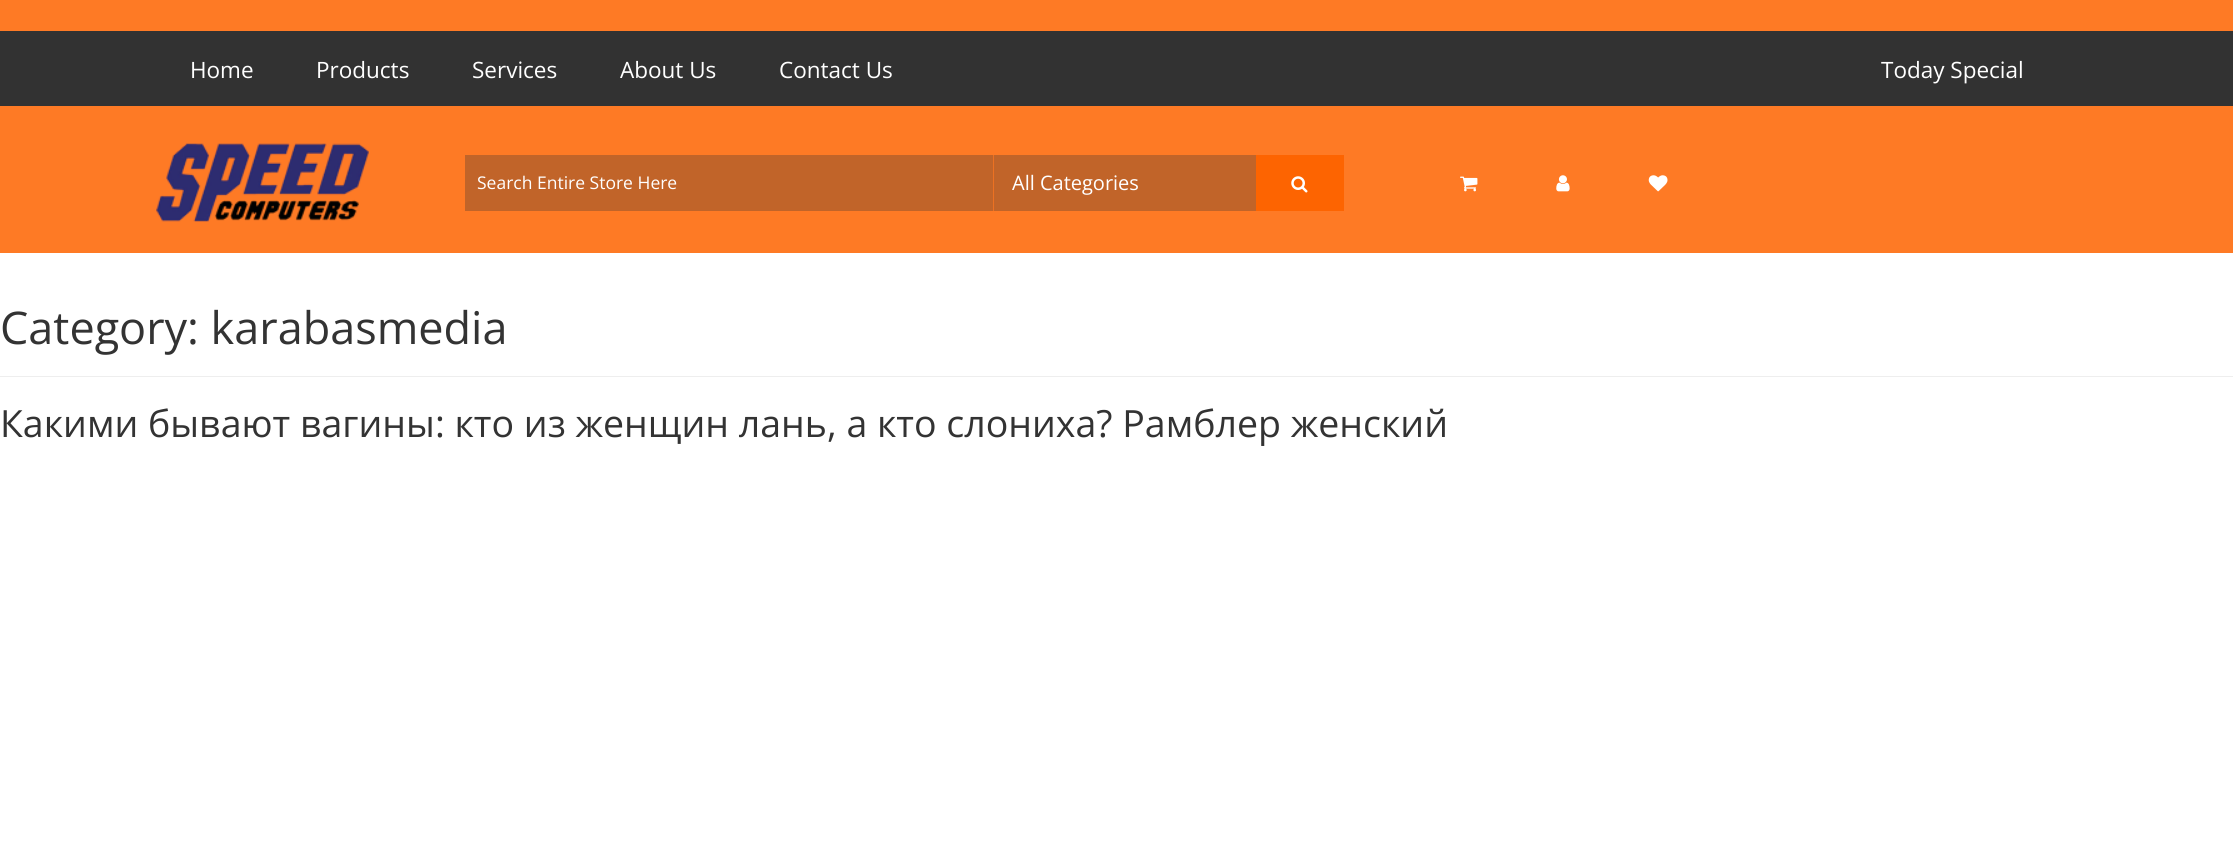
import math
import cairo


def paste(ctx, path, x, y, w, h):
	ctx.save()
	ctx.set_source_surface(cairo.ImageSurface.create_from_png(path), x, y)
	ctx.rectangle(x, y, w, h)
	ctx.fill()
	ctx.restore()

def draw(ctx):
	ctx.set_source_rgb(1, 1, 1)
	ctx.paint()
	ctx.set_source_rgb(0.996, 0.478, 0.145)
	ctx.rectangle(0, 0, 2233, 253)
	ctx.fill()
	ctx.set_source_rgb(0.196, 0.196, 0.196)
	ctx.rectangle(0, 31, 2233, 75)
	ctx.fill()
	ctx.select_font_face('Open Sans')
	ctx.set_font_size(22.5)
	ctx.set_source_rgb(1, 1, 1)
	for x, y, s in [
		(190, 78, 'Home'),
		(316, 78, 'Products'),
		(472, 78, 'Services'),
		(620, 78, 'About Us'),
		(779, 78, 'Contact Us'),
		(1881, 78, 'Today Special'),
	]:
		ctx.move_to(x, y)
		ctx.show_text(s)
	paste(ctx, 'media/1.png', 156, 143, 213, 79)
	ctx.set_source_rgb(0.757, 0.392, 0.161)
	ctx.rectangle(465, 155, 528, 56)
	ctx.fill()
	ctx.set_font_size(17.5)
	ctx.set_source_rgb(1, 1, 1)
	ctx.move_to(477, 189)
	ctx.show_text('Search Entire Store Here')
	ctx.set_source_rgb(0.925, 0.443, 0.133)
	ctx.rectangle(993, 155, 1, 56)
	ctx.fill()
	ctx.set_source_rgb(0.757, 0.392, 0.161)
	ctx.rectangle(994, 155, 262, 56)
	ctx.fill()
	ctx.set_font_size(20)
	ctx.set_source_rgb(1, 1, 1)
	ctx.move_to(1012, 190)
	ctx.show_text('All Categories')
	ctx.set_source_rgb(0.992, 0.392, 0.004)
	ctx.rectangle(1256, 155, 88, 56)
	ctx.fill()
	paste(ctx, 'media/2.png', 1291, 176, 17, 17)
	paste(ctx, 'media/3.png', 1460, 176, 18, 16)
	paste(ctx, 'media/4.png', 1556, 175, 14, 17)
	paste(ctx, 'media/5.png', 1648, 175, 20, 17)
	ctx.set_source_rgb(0.933, 0.933, 0.933)
	ctx.rectangle(0, 376, 2233, 1)
	ctx.fill()
	ctx.set_font_size(45)
	ctx.set_source_rgb(0.2, 0.2, 0.2)
	ctx.move_to(0, 344)
	ctx.show_text('Category: karabasmedia')
	ctx.set_font_size(37.5)
	ctx.move_to(0, 437)
	ctx.show_text('Какими бывают вагины: кто из женщин лань, а кто слониха? Рамблер женский')


surface = cairo.ImageSurface(cairo.FORMAT_RGB24, 2233, 868)
ctx = cairo.Context(surface)
options = cairo.FontOptions()
options.set_hint_metrics(cairo.HINT_METRICS_OFF)
options.set_hint_style(cairo.HINT_STYLE_NONE)
ctx.set_font_options(options)
ctx.set_miter_limit(4)
draw(ctx)
surface.write_to_png('image.png')
